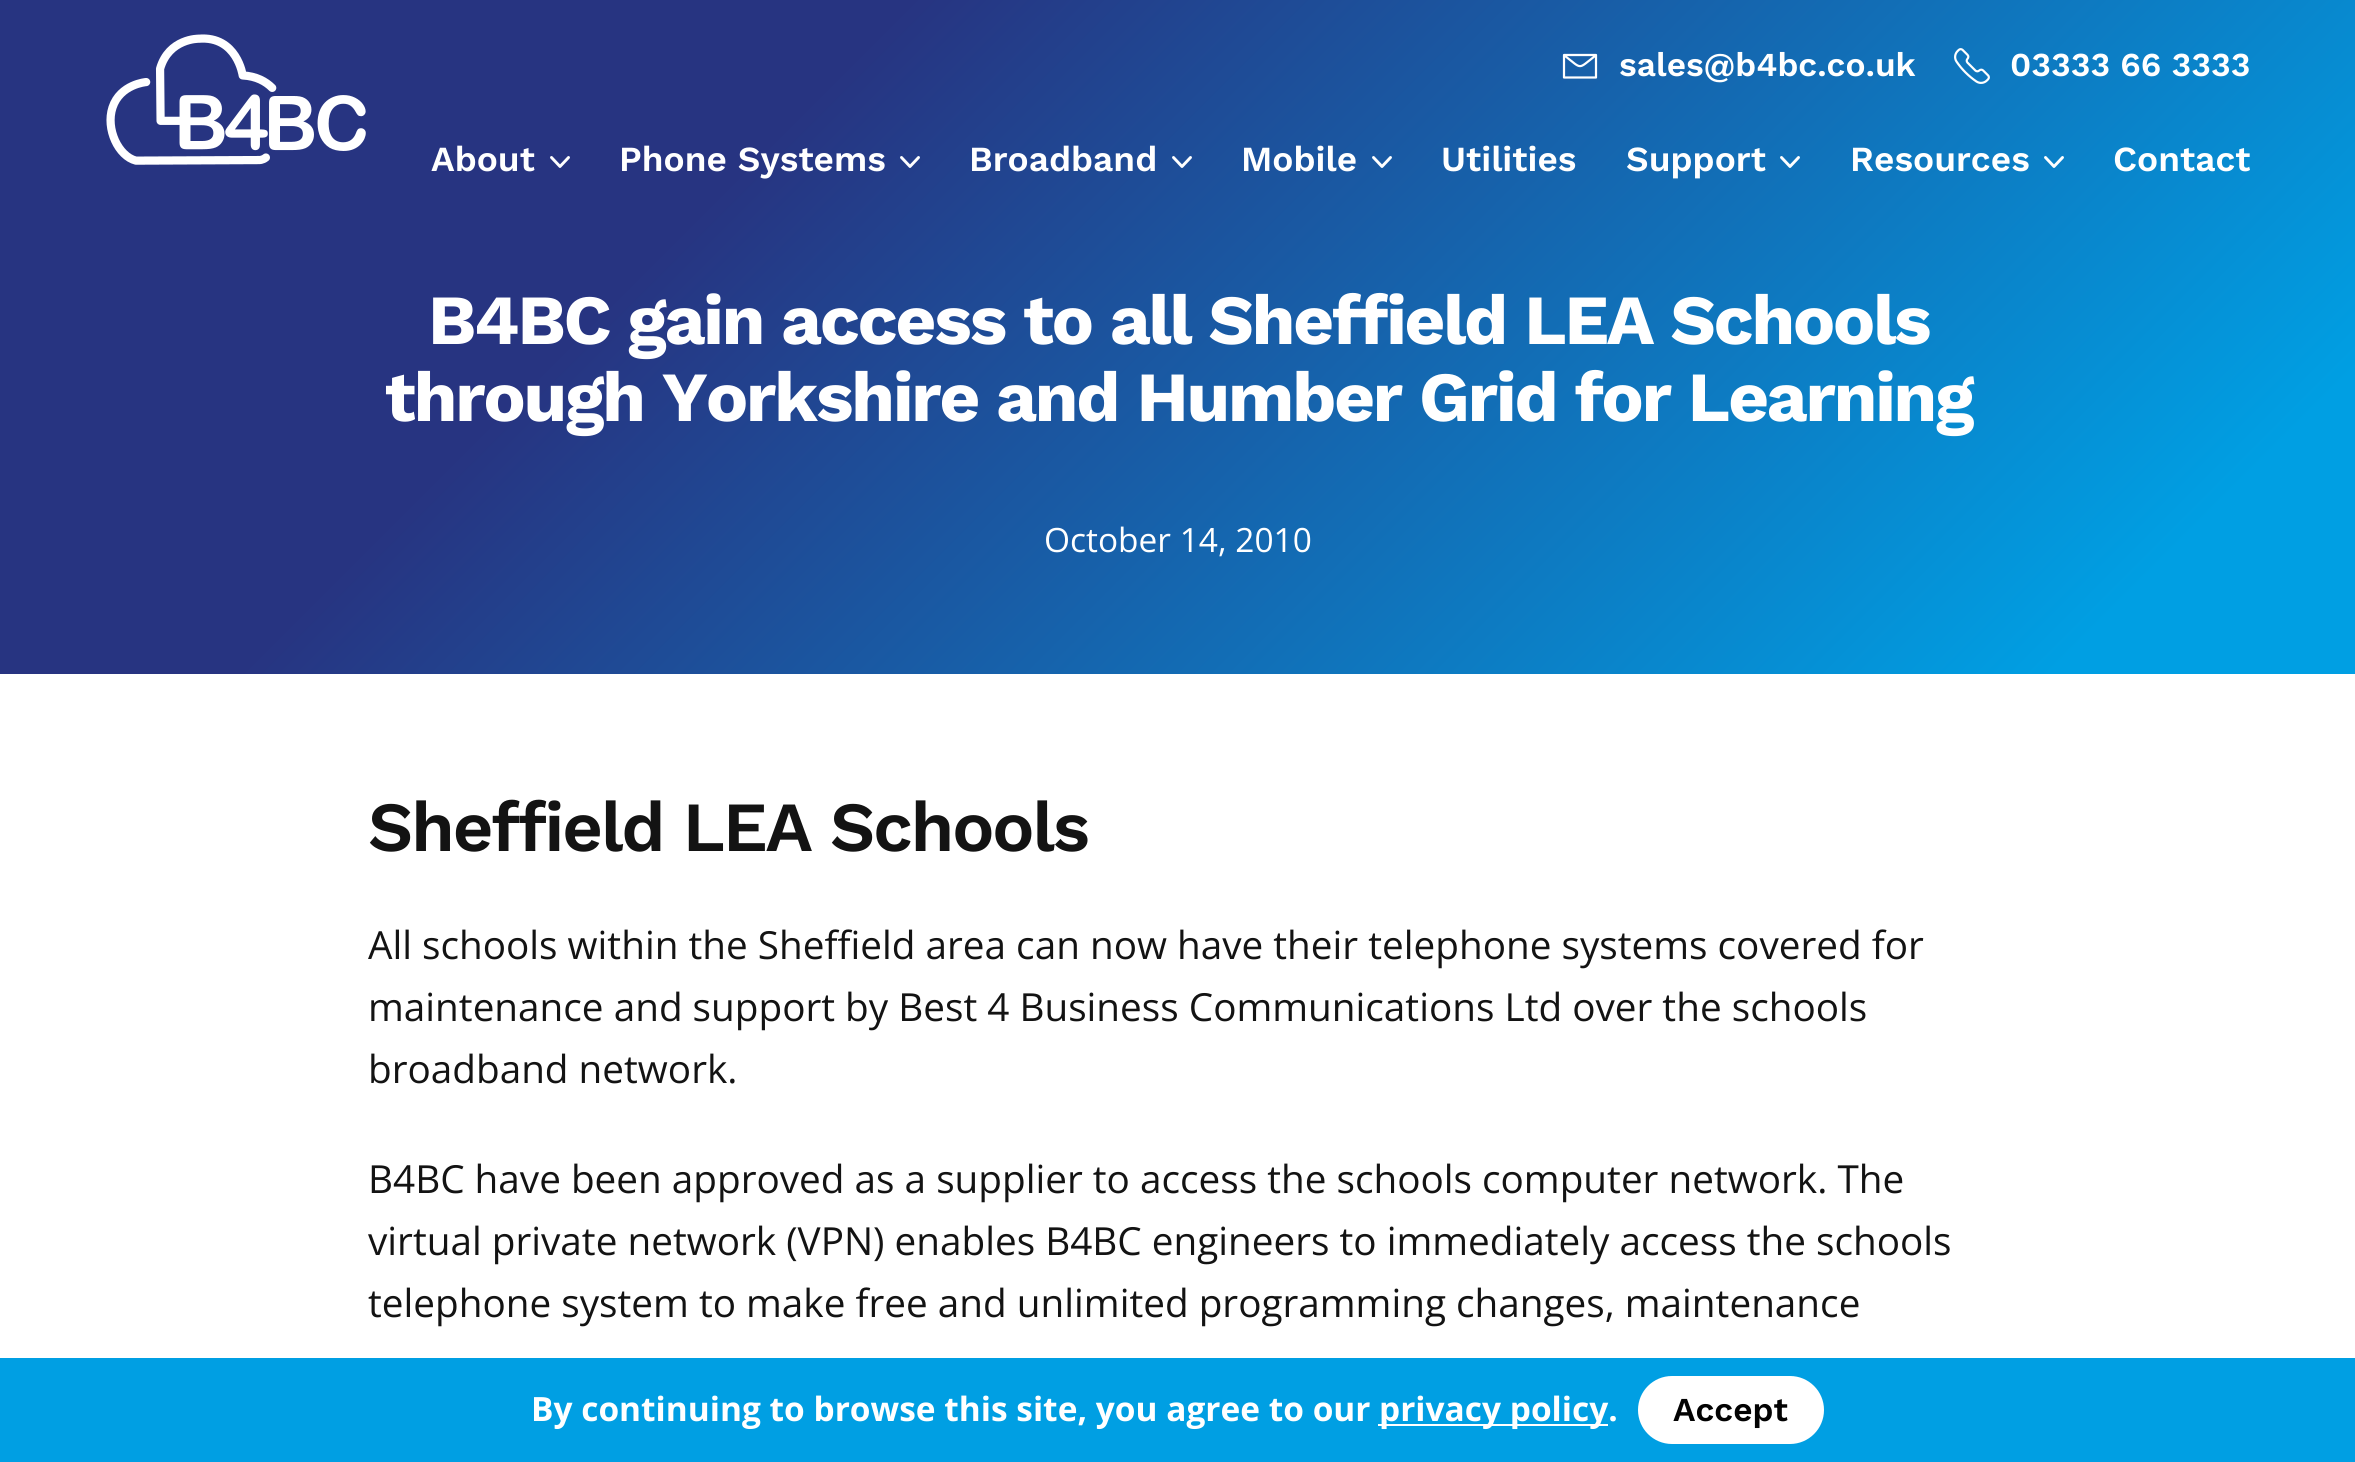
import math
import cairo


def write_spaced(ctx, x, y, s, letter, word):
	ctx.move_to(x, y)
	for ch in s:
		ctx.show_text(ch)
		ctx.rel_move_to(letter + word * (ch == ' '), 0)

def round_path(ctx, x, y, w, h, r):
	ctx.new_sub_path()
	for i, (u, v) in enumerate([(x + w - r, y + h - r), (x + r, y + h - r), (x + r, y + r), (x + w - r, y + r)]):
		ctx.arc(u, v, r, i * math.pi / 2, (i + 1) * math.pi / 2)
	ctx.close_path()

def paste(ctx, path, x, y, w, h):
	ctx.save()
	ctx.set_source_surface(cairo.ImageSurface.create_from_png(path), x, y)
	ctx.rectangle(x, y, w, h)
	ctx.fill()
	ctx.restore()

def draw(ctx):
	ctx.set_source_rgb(1, 1, 1)
	ctx.paint()
	gradient = cairo.LinearGradient(421, -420, 1936, 1095)
	gradient.add_color_stop_rgba(0.3, 0.153, 0.204, 0.506, 1)
	gradient.add_color_stop_rgba(0.9, 0, 0.624, 0.89, 1)
	ctx.set_source(gradient)
	ctx.rectangle(0, 0, 2355, 674)
	ctx.fill()
	paste(ctx, 'media/1.png', 106, 34, 260, 131)
	ctx.new_path()
	ctx.move_to(1564, 55)
	ctx.line_to(1596, 55)
	ctx.line_to(1596, 77.5)
	ctx.line_to(1564, 77.5)
	ctx.close_path()
	ctx.move_to(1595, 56)
	ctx.curve_to(1577.5, 69.5, 1582.5, 69.5, 1565, 56)
	ctx.set_source_rgb(1, 1, 1)
	ctx.set_line_width(2.2)
	ctx.set_line_cap(cairo.LINE_CAP_ROUND)
	ctx.set_line_join(cairo.LINE_JOIN_ROUND)
	ctx.stroke()
	ctx.select_font_face('Work Sans SemiBold')
	ctx.set_font_size(33.45)
	ctx.move_to(1619, 76)
	ctx.show_text('sales@b4bc.co.uk')
	paste(ctx, 'media/2.png', 1954, 48, 36, 36)
	ctx.move_to(2010, 76)
	ctx.show_text('03333 66 3333')
	ctx.set_font_size(35.25)
	ctx.move_to(431, 171)
	ctx.show_text('About')
	ctx.new_path()
	ctx.move_to(551.5, 157.5)
	ctx.line_to(560, 166.5)
	ctx.line_to(568.5, 157.5)
	ctx.set_line_width(2.9)
	ctx.stroke()
	ctx.move_to(619, 171)
	ctx.show_text('Phone Systems')
	ctx.new_path()
	ctx.move_to(901.5, 157.5)
	ctx.line_to(910, 166.5)
	ctx.line_to(918.5, 157.5)
	ctx.stroke()
	ctx.move_to(969, 171)
	ctx.show_text('Broadband')
	ctx.new_path()
	ctx.move_to(1173.5, 157.5)
	ctx.line_to(1182, 166.5)
	ctx.line_to(1190.5, 157.5)
	ctx.stroke()
	ctx.move_to(1241, 171)
	ctx.show_text('Mobile')
	ctx.new_path()
	ctx.move_to(1373.5, 157.5)
	ctx.line_to(1382, 166.5)
	ctx.line_to(1390.5, 157.5)
	ctx.stroke()
	ctx.move_to(1441, 171)
	ctx.show_text('Utilities')
	ctx.move_to(1626, 171)
	ctx.show_text('Support')
	ctx.new_path()
	ctx.move_to(1781.5, 157.5)
	ctx.line_to(1790, 166.5)
	ctx.line_to(1798.5, 157.5)
	ctx.stroke()
	ctx.move_to(1850, 171)
	ctx.show_text('Resources')
	ctx.new_path()
	ctx.move_to(2045.5, 157.5)
	ctx.line_to(2054, 166.5)
	ctx.line_to(2062.5, 157.5)
	ctx.stroke()
	ctx.move_to(2113, 171)
	ctx.show_text('Contact')
	ctx.select_font_face('Work Sans', cairo.FONT_SLANT_NORMAL, cairo.FONT_WEIGHT_BOLD)
	ctx.set_font_size(70.4)
	write_spaced(ctx, 428, 344, 'B4BC gain access to all Sheffield LEA Schools', -2.1, 0)
	write_spaced(ctx, 385, 421, 'through Yorkshire and Humber Grid for Learning', -2.1, 0)
	ctx.select_font_face('Open Sans')
	ctx.set_font_size(33.45)
	ctx.move_to(1044, 552)
	ctx.show_text('October 14, 2010')
	ctx.select_font_face('Work Sans SemiBold')
	ctx.set_font_size(70.4)
	ctx.set_source_rgb(0.075, 0.075, 0.075)
	write_spaced(ctx, 368, 851, 'Sheffield LEA Schools', -2.1, 0)
	ctx.select_font_face('Open Sans')
	ctx.set_font_size(38.7)
	for x, y, s in [
		(368, 959, 'All schools within the Sheffield area can now have their telephone systems covered for'),
		(368, 1021, 'maintenance and support by Best 4 Business Communications Ltd over the schools'),
		(368, 1083, 'broadband network.'),
		(368, 1193, 'B4BC have been approved as a supplier to access the schools computer network. The'),
		(368, 1255, 'virtual private network (VPN) enables B4BC engineers to immediately access the schools'),
		(368, 1317, 'telephone system to make free and unlimited programming changes, maintenance'),
	]:
		ctx.move_to(x, y)
		ctx.show_text(s)
	ctx.set_source_rgb(0, 0.624, 0.89)
	ctx.rectangle(0, 1358, 2355, 104)
	ctx.fill()
	ctx.select_font_face('Open Sans', cairo.FONT_SLANT_NORMAL, cairo.FONT_WEIGHT_BOLD)
	ctx.set_font_size(33.45)
	ctx.set_source_rgb(1, 1, 1)
	ctx.move_to(531, 1421)
	ctx.show_text('By continuing to browse this site, you agree to our')
	ctx.rectangle(1378, 1424, 230, 2)
	ctx.fill()
	ctx.move_to(1379, 1421)
	ctx.show_text('privacy policy.')
	round_path(ctx, 1637, 1375, 188, 70, 35)
	ctx.fill_preserve()
	ctx.set_source_rgb(0, 0.624, 0.89)
	ctx.set_line_width(2)
	ctx.set_line_cap(cairo.LINE_CAP_BUTT)
	ctx.set_line_join(cairo.LINE_JOIN_MITER)
	ctx.stroke()
	ctx.select_font_face('Work Sans SemiBold')
	ctx.set_source_rgb(0.008, 0.008, 0.008)
	ctx.move_to(1673, 1421)
	ctx.show_text('Accept')


surface = cairo.ImageSurface(cairo.FORMAT_RGB24, 2355, 1462)
ctx = cairo.Context(surface)
options = cairo.FontOptions()
options.set_hint_metrics(cairo.HINT_METRICS_OFF)
options.set_hint_style(cairo.HINT_STYLE_NONE)
ctx.set_font_options(options)
ctx.set_miter_limit(4)
draw(ctx)
surface.write_to_png('image.png')
